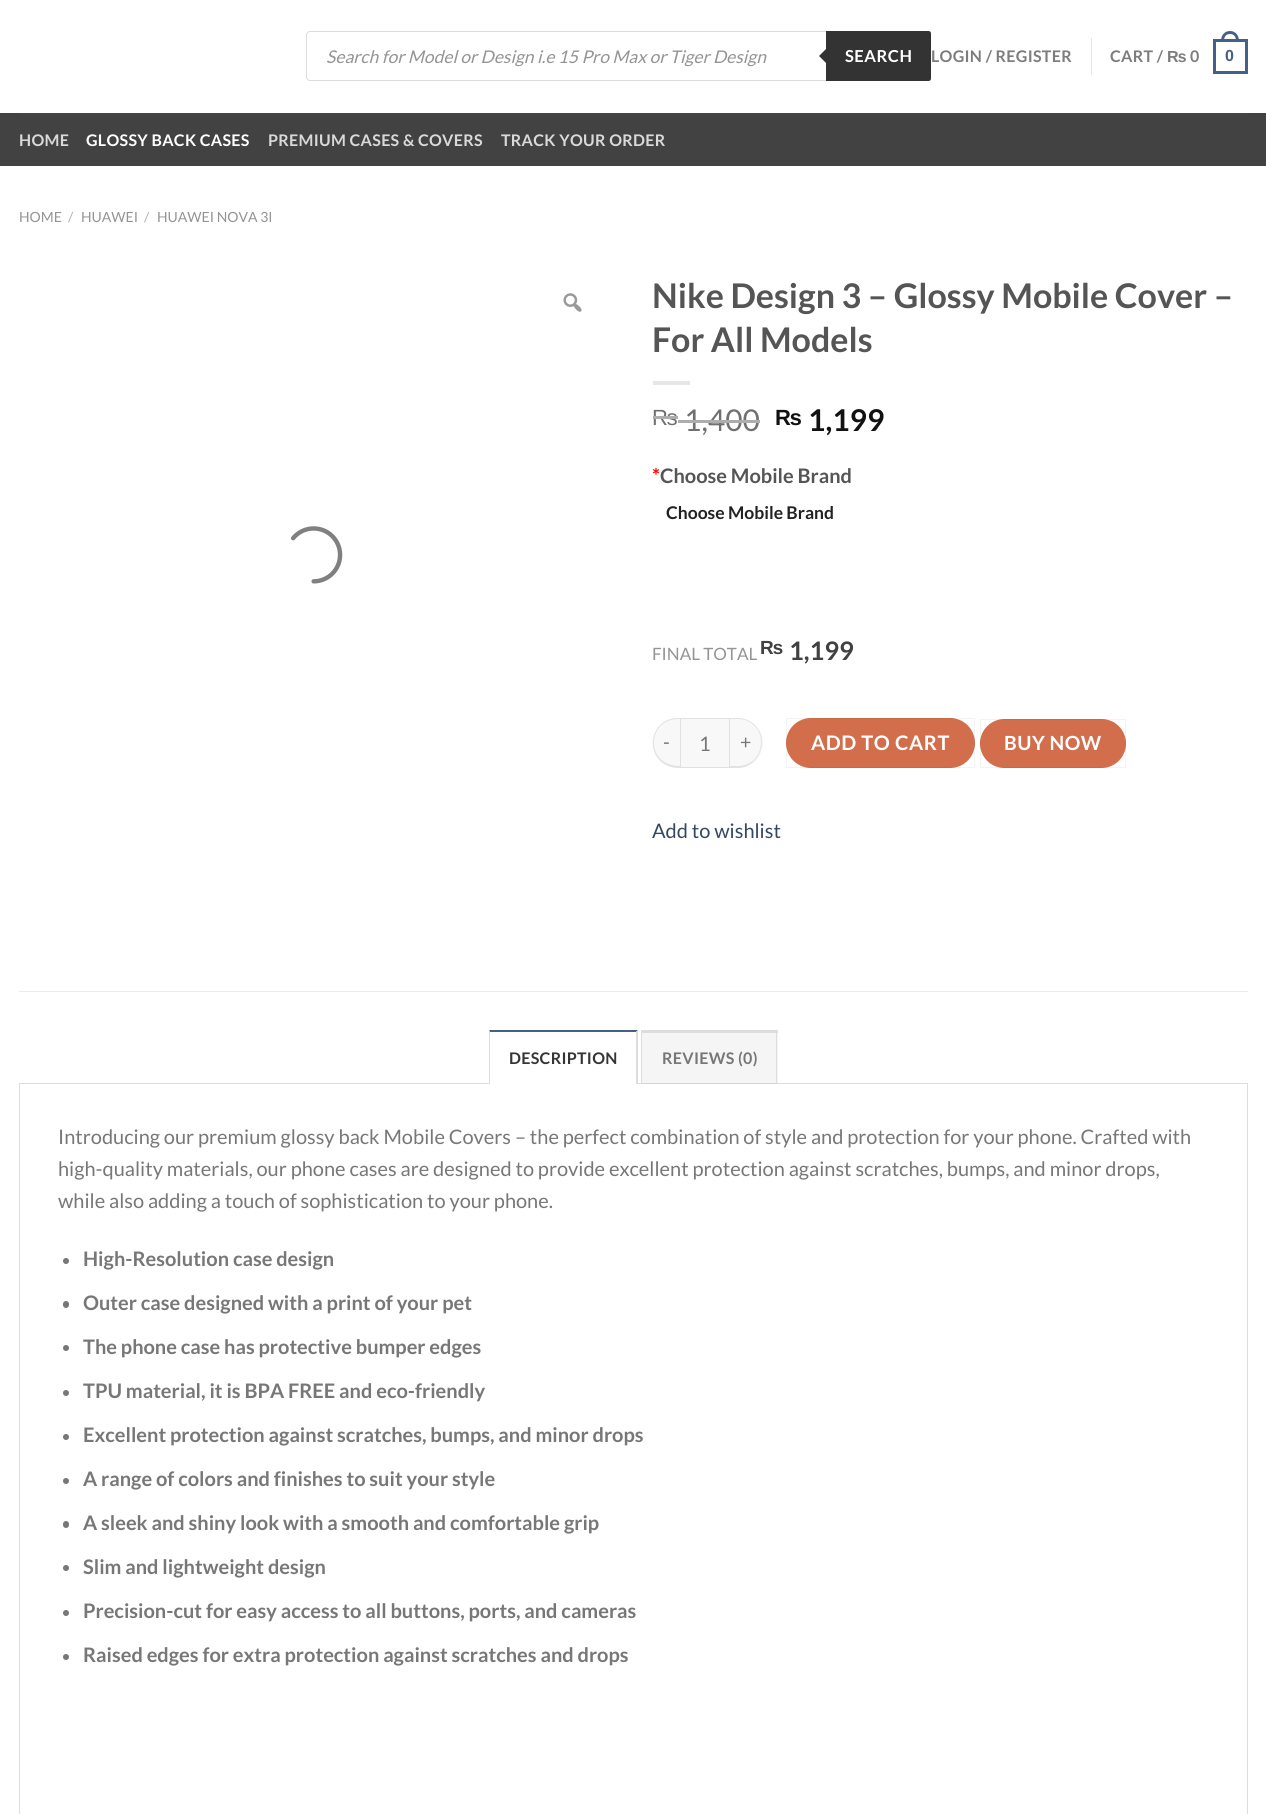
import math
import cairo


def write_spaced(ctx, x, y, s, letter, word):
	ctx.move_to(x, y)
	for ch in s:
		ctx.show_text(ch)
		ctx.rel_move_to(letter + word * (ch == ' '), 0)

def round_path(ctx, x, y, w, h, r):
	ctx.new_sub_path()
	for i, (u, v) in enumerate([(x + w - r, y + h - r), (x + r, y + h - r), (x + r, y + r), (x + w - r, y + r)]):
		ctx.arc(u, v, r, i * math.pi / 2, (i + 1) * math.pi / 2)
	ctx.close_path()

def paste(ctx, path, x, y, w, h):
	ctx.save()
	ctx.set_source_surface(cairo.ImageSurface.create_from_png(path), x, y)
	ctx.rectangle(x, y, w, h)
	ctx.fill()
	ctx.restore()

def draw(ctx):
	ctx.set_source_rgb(1, 1, 1)
	ctx.paint()
	round_path(ctx, 306.5, 31.5, 624, 49, 3.5)
	ctx.set_source_rgb(0.867, 0.867, 0.867)
	ctx.set_line_width(1)
	ctx.stroke()
	ctx.select_font_face('Lato', cairo.FONT_SLANT_ITALIC)
	ctx.set_font_size(17.5)
	ctx.set_source_rgb(0.58, 0.58, 0.58)
	ctx.move_to(326, 63)
	ctx.show_text('Search for Model or Design i.e 15 Pro Max or Tiger Design')
	ctx.set_source_rgb(0.2, 0.2, 0.2)
	ctx.new_path()
	ctx.move_to(826, 31)
	ctx.line_to(928.5, 31)
	ctx.curve_to(930, 31, 931, 32, 931, 33.5)
	ctx.line_to(931, 78.5)
	ctx.curve_to(931, 80, 930, 81, 928.5, 81)
	ctx.line_to(826, 81)
	ctx.close_path()
	ctx.fill()
	ctx.new_path()
	ctx.move_to(829, 46)
	ctx.line_to(829, 66)
	ctx.line_to(819, 56)
	ctx.close_path()
	ctx.fill()
	ctx.select_font_face('Lato', cairo.FONT_SLANT_NORMAL, cairo.FONT_WEIGHT_BOLD)
	ctx.set_font_size(16.5)
	ctx.set_source_rgb(1, 1, 1)
	write_spaced(ctx, 845, 62, 'SEARCH', 0.5, 0)
	ctx.set_font_size(16)
	ctx.set_source_rgb(0.49, 0.49, 0.49)
	write_spaced(ctx, 931, 62, 'LOGIN / REGISTER', 0.3, 0)
	ctx.set_source_rgb(0.902, 0.902, 0.902)
	ctx.rectangle(1091, 38, 1, 37)
	ctx.fill()
	ctx.set_source_rgb(0.49, 0.49, 0.49)
	write_spaced(ctx, 1110, 62, 'CART /', 0.3, 0)
	ctx.select_font_face('Liberation Sans', cairo.FONT_SLANT_NORMAL, cairo.FONT_WEIGHT_BOLD)
	write_spaced(ctx, 1167, 62, '₨', 0.3, 0)
	ctx.select_font_face('Lato', cairo.FONT_SLANT_NORMAL, cairo.FONT_WEIGHT_BOLD)
	write_spaced(ctx, 1190, 62, '0', 0.3, 0)
	ctx.rectangle(1214.5, 40.5, 32, 32)
	ctx.set_source_rgb(0.267, 0.376, 0.518)
	ctx.set_line_width(3)
	ctx.stroke()
	ctx.set_fill_rule(cairo.FILL_RULE_EVEN_ODD)
	ctx.new_path()
	ctx.move_to(1230, 31)
	ctx.curve_to(1236, 31, 1239, 36, 1239, 41)
	ctx.line_to(1221, 41)
	ctx.curve_to(1221, 36, 1224, 31, 1230, 31)
	ctx.close_path()
	ctx.move_to(1230, 34)
	ctx.curve_to(1234.5, 34, 1236, 37.5, 1236, 41)
	ctx.line_to(1224, 41)
	ctx.curve_to(1224, 37.5, 1225.5, 34, 1230, 34)
	ctx.close_path()
	ctx.fill()
	ctx.select_font_face('Liberation Sans', cairo.FONT_SLANT_NORMAL, cairo.FONT_WEIGHT_BOLD)
	write_spaced(ctx, 1225, 61, '0', 0.3, 0)
	ctx.set_source_rgb(0.259, 0.259, 0.259)
	ctx.rectangle(0, 113, 1266, 53)
	ctx.fill()
	ctx.set_source_rgb(0.278, 0.278, 0.278)
	ctx.rectangle(19, 113, 1229, 1)
	ctx.fill()
	ctx.select_font_face('Lato', cairo.FONT_SLANT_NORMAL, cairo.FONT_WEIGHT_BOLD)
	ctx.set_source_rgb(0.851, 0.851, 0.851)
	write_spaced(ctx, 19, 146, 'HOME', 0.3, 0)
	ctx.set_source_rgb(1, 1, 1)
	write_spaced(ctx, 86, 146, 'GLOSSY BACK CASES', 0.3, 0)
	ctx.set_source_rgb(0.851, 0.851, 0.851)
	write_spaced(ctx, 268, 146, 'PREMIUM CASES & COVERS', 0.3, 0)
	write_spaced(ctx, 501, 146, 'TRACK YOUR ORDER', 0.3, 0)
	ctx.select_font_face('Lato')
	ctx.set_font_size(14)
	ctx.set_source_rgb(0.58, 0.58, 0.58)
	ctx.move_to(19, 222)
	ctx.show_text('HOME')
	ctx.set_source_rgb(0.698, 0.698, 0.698)
	ctx.move_to(68, 222)
	ctx.show_text('/')
	ctx.set_source_rgb(0.58, 0.58, 0.58)
	ctx.move_to(81, 222)
	ctx.show_text('HUAWEI')
	ctx.set_source_rgb(0.698, 0.698, 0.698)
	ctx.move_to(144, 222)
	ctx.show_text('/')
	ctx.set_source_rgb(0.58, 0.58, 0.58)
	ctx.move_to(157, 222)
	ctx.show_text('HUAWEI NOVA 3I')
	paste(ctx, 'media/1.png', 563, 293, 19, 19)
	paste(ctx, 'media/2.png', 291, 526, 52, 58)
	ctx.select_font_face('Lato', cairo.FONT_SLANT_NORMAL, cairo.FONT_WEIGHT_BOLD)
	ctx.set_font_size(34)
	ctx.set_source_rgb(0.333, 0.333, 0.333)
	ctx.move_to(652, 308)
	ctx.show_text('Nike Design 3 – Glossy Mobile Cover –')
	ctx.move_to(652, 352)
	ctx.show_text('For All Models')
	ctx.set_source_rgb(0.902, 0.902, 0.902)
	ctx.rectangle(653, 381, 37, 4)
	ctx.fill()
	ctx.select_font_face('Liberation Sans')
	ctx.set_font_size(22)
	ctx.set_source_rgb(0.439, 0.439, 0.439)
	ctx.move_to(652, 425)
	ctx.show_text('₨')
	ctx.set_source_rgb(0.678, 0.678, 0.678)
	ctx.rectangle(653, 416, 25, 3)
	ctx.fill()
	ctx.select_font_face('Lato')
	ctx.set_font_size(30)
	ctx.set_source_rgb(0.439, 0.439, 0.439)
	ctx.move_to(684, 431)
	ctx.show_text('1,400')
	ctx.set_source_rgb(0.678, 0.678, 0.678)
	ctx.rectangle(678, 420, 82, 3)
	ctx.fill()
	ctx.select_font_face('Liberation Sans', cairo.FONT_SLANT_NORMAL, cairo.FONT_WEIGHT_BOLD)
	ctx.set_font_size(22)
	ctx.set_source_rgb(0.067, 0.067, 0.067)
	ctx.move_to(775, 425)
	ctx.show_text('₨')
	ctx.select_font_face('Lato', cairo.FONT_SLANT_NORMAL, cairo.FONT_WEIGHT_BOLD)
	ctx.set_font_size(30)
	ctx.move_to(808, 431)
	ctx.show_text('1,199')
	ctx.set_font_size(20)
	ctx.set_source_rgb(1, 0, 0)
	ctx.move_to(652, 483)
	ctx.show_text('*')
	ctx.set_source_rgb(0.333, 0.333, 0.333)
	ctx.move_to(660, 483)
	ctx.show_text('Choose Mobile Brand')
	ctx.set_font_size(17.5)
	ctx.set_source_rgb(0.133, 0.133, 0.133)
	ctx.move_to(666, 519)
	ctx.show_text('Choose Mobile Brand')
	ctx.select_font_face('Lato')
	ctx.set_font_size(17)
	ctx.set_source_rgb(0.58, 0.58, 0.58)
	ctx.move_to(652, 660)
	ctx.show_text('FINAL TOTAL')
	ctx.select_font_face('Liberation Sans', cairo.FONT_SLANT_NORMAL, cairo.FONT_WEIGHT_BOLD)
	ctx.set_font_size(19)
	ctx.set_source_rgb(0.255, 0.255, 0.255)
	ctx.move_to(760, 654)
	ctx.show_text('₨')
	ctx.select_font_face('Lato', cairo.FONT_SLANT_NORMAL, cairo.FONT_WEIGHT_BOLD)
	ctx.set_font_size(25.5)
	ctx.move_to(789, 660)
	ctx.show_text('1,199')
	ctx.set_source_rgb(0.969, 0.969, 0.969)
	ctx.new_path()
	ctx.move_to(678, 718)
	ctx.line_to(680, 718)
	ctx.line_to(680, 768)
	ctx.line_to(678, 768)
	ctx.curve_to(664, 768, 653, 757, 653, 743)
	ctx.curve_to(653, 729, 664, 718, 678, 718)
	ctx.close_path()
	ctx.fill()
	ctx.set_source_rgba(0, 0, 0, 0.09)
	ctx.new_path()
	ctx.move_to(678, 718)
	ctx.line_to(680, 718)
	ctx.line_to(680, 768)
	ctx.curve_to(643, 768, 645, 718, 678, 718)
	ctx.close_path()
	ctx.move_to(678, 719)
	ctx.line_to(680, 719)
	ctx.line_to(680, 766)
	ctx.curve_to(644, 766, 647, 719, 678, 719)
	ctx.close_path()
	ctx.fill()
	ctx.select_font_face('Lato')
	ctx.set_font_size(19.5)
	ctx.set_source_rgb(0.467, 0.467, 0.467)
	write_spaced(ctx, 663, 749, '-', 0.5, 0)
	ctx.set_source_rgb(0.969, 0.969, 0.969)
	ctx.rectangle(680.5, 718.5, 49, 49)
	ctx.fill_preserve()
	ctx.set_source_rgb(0.882, 0.882, 0.882)
	ctx.set_line_width(1)
	ctx.stroke()
	ctx.set_font_size(20)
	ctx.set_source_rgb(0.467, 0.467, 0.467)
	ctx.move_to(699, 751)
	ctx.show_text('1')
	ctx.set_source_rgb(0.969, 0.969, 0.969)
	ctx.new_path()
	ctx.move_to(730, 718)
	ctx.line_to(738, 718)
	ctx.curve_to(752, 718, 763, 729, 763, 743)
	ctx.curve_to(763, 757, 752, 768, 738, 768)
	ctx.line_to(730, 768)
	ctx.close_path()
	ctx.fill()
	ctx.set_source_rgba(0, 0, 0, 0.09)
	ctx.new_path()
	ctx.move_to(730, 718)
	ctx.line_to(738, 718)
	ctx.curve_to(751, 718, 762, 729, 762, 742)
	ctx.curve_to(762, 756, 751, 768, 738, 768)
	ctx.line_to(730, 768)
	ctx.close_path()
	ctx.move_to(730, 719)
	ctx.line_to(738, 719)
	ctx.curve_to(751, 719, 761, 729, 761, 742)
	ctx.curve_to(761, 756, 751, 766, 738, 766)
	ctx.line_to(730, 766)
	ctx.close_path()
	ctx.fill()
	ctx.set_font_size(19.5)
	ctx.set_source_rgb(0.467, 0.467, 0.467)
	write_spaced(ctx, 740, 749, '+', 0.5, 0)
	ctx.set_source_rgb(0.824, 0.431, 0.294)
	round_path(ctx, 786, 718, 189, 50, 25)
	ctx.fill()
	ctx.rectangle(786.5, 718.5, 188, 49)
	ctx.set_source_rgba(0, 0, 0, 0.05)
	ctx.stroke()
	ctx.select_font_face('Lato', cairo.FONT_SLANT_NORMAL, cairo.FONT_WEIGHT_BOLD)
	ctx.set_font_size(20)
	ctx.set_source_rgb(1, 1, 1)
	write_spaced(ctx, 811, 750, 'ADD TO CART', 0.6, 0)
	ctx.set_source_rgb(0.824, 0.431, 0.294)
	round_path(ctx, 980, 719, 146, 49, 24.5)
	ctx.fill()
	ctx.rectangle(980.5, 719.5, 145, 48)
	ctx.set_source_rgba(0, 0, 0, 0.05)
	ctx.stroke()
	ctx.set_font_size(19.5)
	ctx.set_source_rgb(1, 1, 1)
	write_spaced(ctx, 1004, 750, 'BUY NOW', 0.5, 0)
	ctx.select_font_face('Lato')
	ctx.set_font_size(20)
	ctx.set_source_rgb(0.2, 0.282, 0.384)
	ctx.move_to(652, 838)
	ctx.show_text('Add to wishlist')
	ctx.set_source_rgb(0.925, 0.925, 0.925)
	ctx.rectangle(19, 991, 1229, 1)
	ctx.fill()
	ctx.rectangle(19.5, 1083.5, 1228, 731)
	ctx.set_source_rgb(0.867, 0.867, 0.867)
	ctx.stroke()
	ctx.set_source_rgb(1, 1, 1)
	ctx.rectangle(489, 1083, 149, 1)
	ctx.fill()
	ctx.set_source_rgb(0.267, 0.376, 0.518)
	ctx.set_fill_rule(cairo.FILL_RULE_WINDING)
	ctx.new_path()
	ctx.move_to(489, 1030)
	ctx.line_to(638, 1030)
	ctx.line_to(636, 1032)
	ctx.line_to(490, 1032)
	ctx.close_path()
	ctx.fill()
	ctx.set_source_rgb(0.867, 0.867, 0.867)
	ctx.new_path()
	ctx.move_to(638, 1030)
	ctx.line_to(638, 1084)
	ctx.line_to(636, 1084)
	ctx.line_to(636, 1032)
	ctx.close_path()
	ctx.fill()
	ctx.new_path()
	ctx.move_to(489, 1084)
	ctx.line_to(489, 1030)
	ctx.line_to(490, 1032)
	ctx.line_to(490, 1084)
	ctx.close_path()
	ctx.fill()
	ctx.select_font_face('Lato', cairo.FONT_SLANT_NORMAL, cairo.FONT_WEIGHT_BOLD)
	ctx.set_font_size(16)
	ctx.set_source_rgb(0.208, 0.208, 0.208)
	write_spaced(ctx, 509, 1064, 'DESCRIPTION', 0.3, 0)
	ctx.set_source_rgba(0, 0, 0, 0.04)
	ctx.rectangle(642, 1033, 136, 51)
	ctx.fill()
	ctx.set_source_rgb(0.867, 0.867, 0.867)
	ctx.rectangle(641, 1030, 137, 3)
	ctx.rectangle(776, 1030, 1, 54)
	ctx.rectangle(641, 1030, 1, 54)
	ctx.fill()
	ctx.set_source_rgb(0.467, 0.467, 0.467)
	write_spaced(ctx, 662, 1064, 'REVIEWS (0)', 0.3, 0)
	ctx.select_font_face('Lato')
	ctx.set_font_size(20)
	for x, y, s in [
		(58, 1144, 'Introducing our premium glossy back Mobile Covers – the perfect combination of style and protection for your phone. Crafted with'),
		(58, 1176, 'high-quality materials, our phone cases are designed to provide excellent protection against scratches, bumps, and minor drops,'),
		(58, 1208, 'while also adding a touch of sophistication to your phone.'),
	]:
		ctx.move_to(x, y)
		ctx.show_text(s)
	ctx.new_path()
	ctx.arc(66, 1261, 3, 0, 2 * math.pi)
	ctx.fill()
	ctx.select_font_face('Lato', cairo.FONT_SLANT_NORMAL, cairo.FONT_WEIGHT_BOLD)
	ctx.move_to(83, 1266)
	ctx.show_text('High-Resolution case design')
	round_path(ctx, 63, 1301, 6, 7, 3)
	ctx.fill()
	ctx.move_to(83, 1310)
	ctx.show_text('Outer case designed with a print of your pet')
	ctx.new_path()
	ctx.arc(66, 1348, 3, 0, 2 * math.pi)
	ctx.fill()
	ctx.move_to(83, 1354)
	ctx.show_text('The phone case has protective bumper edges')
	ctx.new_path()
	ctx.arc(66, 1393, 3, 0, 2 * math.pi)
	ctx.fill()
	ctx.move_to(83, 1398)
	ctx.show_text('TPU material, it is BPA FREE and eco-friendly')
	ctx.new_path()
	ctx.arc(66, 1437, 3, 0, 2 * math.pi)
	ctx.fill()
	ctx.move_to(83, 1442)
	ctx.show_text('Excellent protection against scratches, bumps, and minor drops')
	ctx.new_path()
	ctx.arc(66, 1481, 3, 0, 2 * math.pi)
	ctx.fill()
	ctx.move_to(83, 1486)
	ctx.show_text('A range of colors and finishes to suit your style')
	round_path(ctx, 63, 1521, 6, 7, 3)
	ctx.fill()
	ctx.move_to(83, 1530)
	ctx.show_text('A sleek and shiny look with a smooth and comfortable grip')
	ctx.new_path()
	ctx.arc(66, 1568, 3, 0, 2 * math.pi)
	ctx.fill()
	ctx.move_to(83, 1574)
	ctx.show_text('Slim and lightweight design')
	ctx.new_path()
	ctx.arc(66, 1613, 3, 0, 2 * math.pi)
	ctx.fill()
	ctx.move_to(83, 1618)
	ctx.show_text('Precision-cut for easy access to all buttons, ports, and cameras')
	ctx.new_path()
	ctx.arc(66, 1657, 3, 0, 2 * math.pi)
	ctx.fill()
	ctx.move_to(83, 1662)
	ctx.show_text('Raised edges for extra protection against scratches and drops')


surface = cairo.ImageSurface(cairo.FORMAT_RGB24, 1266, 1814)
ctx = cairo.Context(surface)
options = cairo.FontOptions()
options.set_hint_metrics(cairo.HINT_METRICS_OFF)
options.set_hint_style(cairo.HINT_STYLE_NONE)
ctx.set_font_options(options)
ctx.set_miter_limit(4)
draw(ctx)
surface.write_to_png('image.png')
